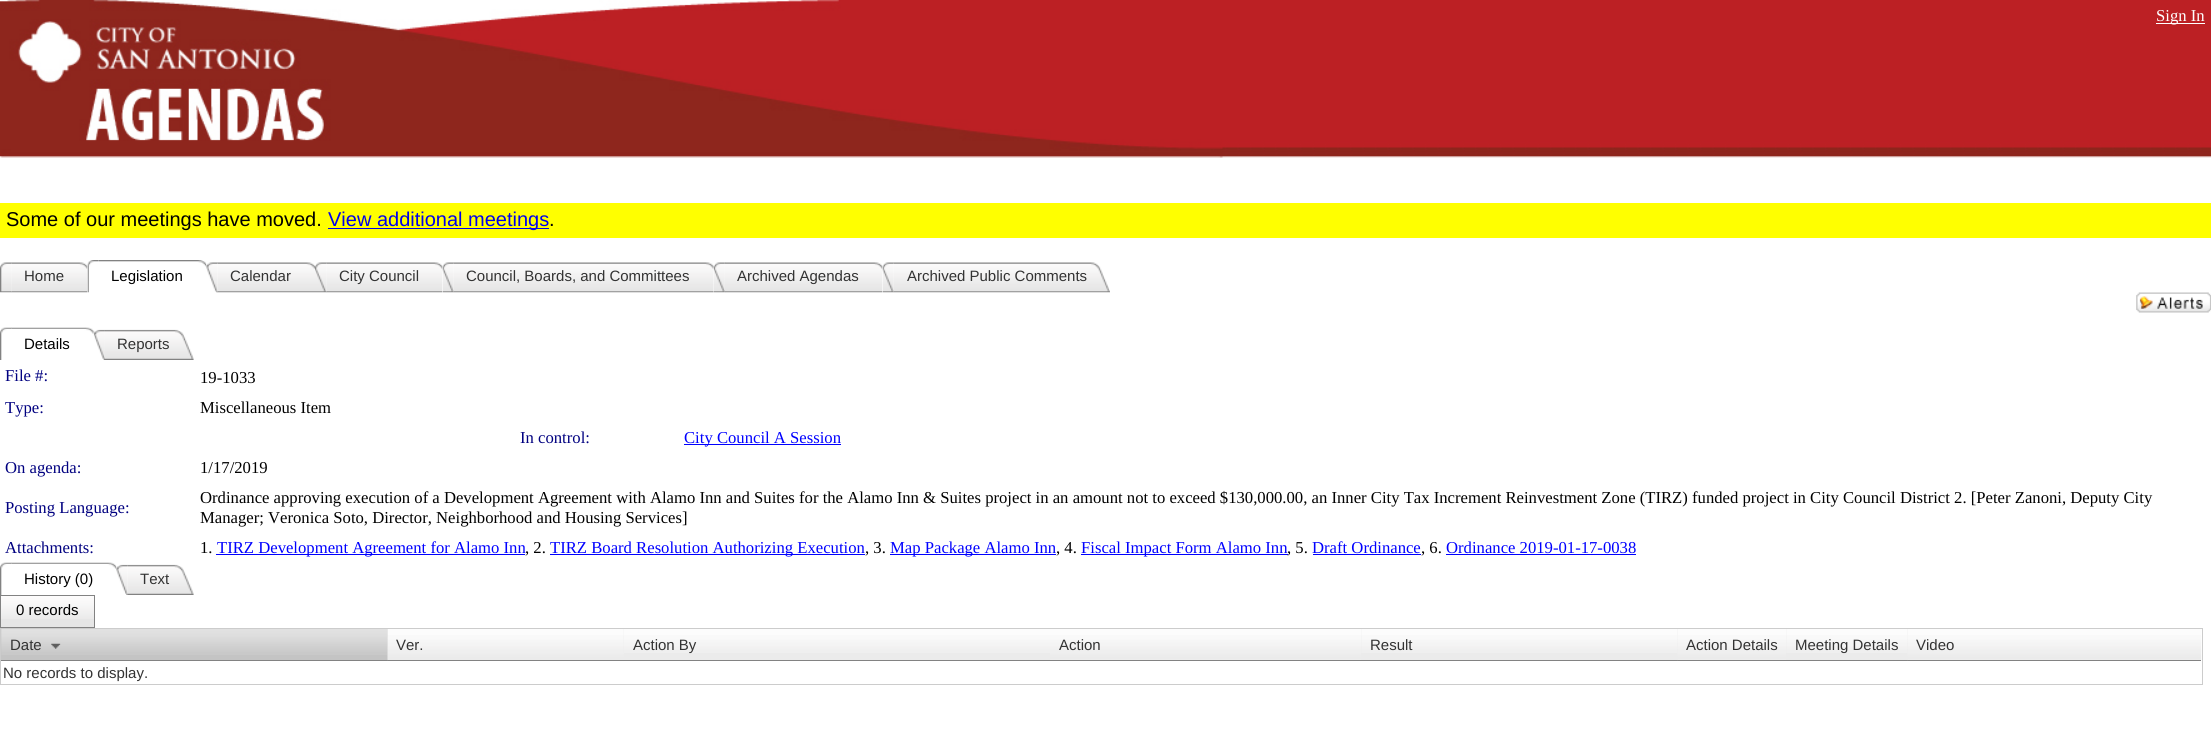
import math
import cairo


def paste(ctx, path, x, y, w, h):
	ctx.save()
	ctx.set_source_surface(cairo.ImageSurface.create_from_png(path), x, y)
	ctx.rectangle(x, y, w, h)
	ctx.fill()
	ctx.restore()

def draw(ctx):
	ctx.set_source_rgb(1, 1, 1)
	ctx.paint()
	paste(ctx, 'media/1.png', 0, 0, 2211, 158)
	ctx.set_source_rgb(1, 1, 1)
	ctx.rectangle(2156, 23, 49, 1)
	ctx.fill()
	ctx.select_font_face('Liberation Serif')
	ctx.set_font_size(16.67)
	ctx.move_to(2156, 21)
	ctx.show_text('Sign In')
	paste(ctx, 'media/2.png', 0, 0, 1223, 158)
	ctx.set_source_rgb(1, 1, 0)
	ctx.rectangle(0, 203, 2211, 35)
	ctx.fill()
	ctx.select_font_face('Liberation Sans')
	ctx.set_font_size(20)
	ctx.set_source_rgb(0, 0, 0)
	ctx.move_to(6, 226)
	ctx.show_text('Some of our meetings have moved.')
	ctx.set_source_rgb(0, 0, 0.933)
	ctx.rectangle(328, 228, 221, 1)
	ctx.fill()
	ctx.move_to(328, 226)
	ctx.show_text('View additional meetings')
	ctx.set_source_rgb(0, 0, 0)
	ctx.move_to(549, 226)
	ctx.show_text('.')
	paste(ctx, 'media/3.png', 0, 262, 12, 31)
	paste(ctx, 'media/4.png', 11, 262, 77, 31)
	ctx.set_font_size(15)
	ctx.set_source_rgb(0.2, 0.2, 0.2)
	ctx.move_to(24, 281)
	ctx.show_text('Home')
	paste(ctx, 'media/5.png', 87, 260, 12, 33)
	paste(ctx, 'media/6.png', 98, 260, 109, 7)
	ctx.set_source_rgb(0, 0, 0)
	ctx.move_to(111, 281)
	ctx.show_text('Legislation')
	paste(ctx, 'media/7.png', 206, 262, 12, 31)
	paste(ctx, 'media/8.png', 217, 262, 98, 31)
	ctx.set_source_rgb(0.2, 0.2, 0.2)
	ctx.move_to(230, 281)
	ctx.show_text('Calendar')
	paste(ctx, 'media/9.png', 315, 262, 12, 31)
	paste(ctx, 'media/10.png', 326, 262, 117, 31)
	ctx.move_to(339, 281)
	ctx.show_text('City Council')
	paste(ctx, 'media/11.png', 442, 262, 12, 31)
	paste(ctx, 'media/12.png', 453, 262, 261, 31)
	ctx.move_to(466, 281)
	ctx.show_text('Council, Boards, and Committees')
	paste(ctx, 'media/13.png', 713, 262, 13, 31)
	paste(ctx, 'media/14.png', 725, 262, 158, 31)
	ctx.move_to(737, 281)
	ctx.show_text('Archived Agendas')
	paste(ctx, 'media/15.png', 882, 262, 12, 31)
	paste(ctx, 'media/16.png', 893, 262, 217, 31)
	ctx.move_to(907, 281)
	ctx.show_text('Archived Public Comments')
	paste(ctx, 'media/17.png', 2136, 292, 75, 21)
	paste(ctx, 'media/18.png', 0, 327, 12, 33)
	paste(ctx, 'media/19.png', 11, 327, 83, 7)
	ctx.set_source_rgb(0, 0, 0)
	ctx.move_to(24, 349)
	ctx.show_text('Details')
	paste(ctx, 'media/20.png', 93, 329, 13, 31)
	paste(ctx, 'media/21.png', 105, 329, 89, 31)
	ctx.set_source_rgb(0.2, 0.2, 0.2)
	ctx.move_to(117, 349)
	ctx.show_text('Reports')
	ctx.select_font_face('Liberation Serif')
	ctx.set_font_size(16.67)
	ctx.set_source_rgb(0, 0, 0.502)
	ctx.move_to(5, 381)
	ctx.show_text('File #:')
	ctx.set_source_rgb(0, 0, 0)
	ctx.move_to(200, 383)
	ctx.show_text('19-1033')
	ctx.set_source_rgb(0, 0, 0.502)
	ctx.move_to(5, 413)
	ctx.show_text('Type:')
	ctx.set_source_rgb(0, 0, 0)
	ctx.move_to(200, 413)
	ctx.show_text('Miscellaneous Item')
	ctx.set_source_rgb(0, 0, 0.502)
	ctx.move_to(520, 443)
	ctx.show_text('In control:')
	ctx.set_source_rgb(0, 0, 1)
	ctx.rectangle(684, 444, 157, 1)
	ctx.fill()
	ctx.move_to(684, 443)
	ctx.show_text('City Council A Session')
	ctx.set_source_rgb(0, 0, 0.502)
	ctx.move_to(5, 473)
	ctx.show_text('On agenda:')
	ctx.set_source_rgb(0, 0, 0)
	ctx.move_to(200, 473)
	ctx.show_text('1/17/2019')
	ctx.set_source_rgb(0, 0, 0.502)
	ctx.move_to(5, 513)
	ctx.show_text('Posting Language:')
	ctx.set_source_rgb(0, 0, 0)
	ctx.move_to(200, 503)
	ctx.show_text('Ordinance approving execution of a Development Agreement with Alamo Inn and Suites for the Alamo Inn & Suites project in an amount not to exceed $130,000.00, an Inner City Tax Increment Reinvestment Zone (TIRZ) funded project in City Council District 2. [Peter Zanoni, Deputy City')
	ctx.move_to(200, 523)
	ctx.show_text('Manager; Veronica Soto, Director, Neighborhood and Housing Services]')
	ctx.set_source_rgb(0, 0, 0.502)
	ctx.move_to(5, 553)
	ctx.show_text('Attachments:')
	ctx.set_source_rgb(0, 0, 0)
	ctx.move_to(200, 553)
	ctx.show_text('1.')
	ctx.set_source_rgb(0, 0, 1)
	ctx.rectangle(216, 554, 309, 1)
	ctx.fill()
	ctx.move_to(217, 553)
	ctx.show_text('TIRZ Development Agreement for Alamo Inn')
	ctx.set_source_rgb(0, 0, 0)
	ctx.move_to(525, 553)
	ctx.show_text(', 2.')
	ctx.set_source_rgb(0, 0, 1)
	ctx.rectangle(550, 554, 315, 1)
	ctx.fill()
	ctx.move_to(550, 553)
	ctx.show_text('TIRZ Board Resolution Authorizing Execution')
	ctx.set_source_rgb(0, 0, 0)
	ctx.move_to(865, 553)
	ctx.show_text(', 3.')
	ctx.set_source_rgb(0, 0, 1)
	ctx.rectangle(890, 554, 166, 1)
	ctx.fill()
	ctx.move_to(890, 553)
	ctx.show_text('Map Package Alamo Inn')
	ctx.set_source_rgb(0, 0, 0)
	ctx.move_to(1056, 553)
	ctx.show_text(', 4.')
	ctx.set_source_rgb(0, 0, 1)
	ctx.rectangle(1081, 554, 207, 1)
	ctx.fill()
	ctx.move_to(1081, 553)
	ctx.show_text('Fiscal Impact Form Alamo Inn')
	ctx.set_source_rgb(0, 0, 0)
	ctx.move_to(1287, 553)
	ctx.show_text(', 5.')
	ctx.set_source_rgb(0, 0, 1)
	ctx.move_to(1312, 553)
	ctx.show_text('Draft Ordinance')
	ctx.set_source_rgb(0, 0, 0)
	ctx.move_to(1421, 553)
	ctx.show_text(', 6.')
	ctx.set_source_rgb(0, 0, 1)
	ctx.rectangle(1313, 554, 108, 1)
	ctx.fill()
	ctx.move_to(1446, 553)
	ctx.show_text('Ordinance 2019-01-17-0038')
	ctx.rectangle(1446, 554, 190, 1)
	ctx.fill()
	paste(ctx, 'media/22.png', 0, 562, 12, 33)
	paste(ctx, 'media/23.png', 11, 562, 106, 7)
	ctx.select_font_face('Liberation Sans')
	ctx.set_font_size(15)
	ctx.set_source_rgb(0, 0, 0)
	ctx.move_to(24, 584)
	ctx.show_text('History (0)')
	paste(ctx, 'media/24.png', 116, 564, 12, 31)
	paste(ctx, 'media/25.png', 127, 564, 67, 31)
	ctx.set_source_rgb(0.2, 0.2, 0.2)
	ctx.move_to(140, 584)
	ctx.show_text('Text')
	ctx.set_source_rgb(0.902, 0.902, 0.902)
	ctx.rectangle(1, 619, 93, 8)
	ctx.fill()
	paste(ctx, 'media/26.png', 1, 596, 93, 23)
	ctx.rectangle(0.5, 595.5, 94, 32)
	ctx.set_source_rgb(0.51, 0.51, 0.51)
	ctx.set_line_width(1)
	ctx.stroke()
	ctx.set_source_rgb(0, 0, 0)
	ctx.move_to(16, 615)
	ctx.show_text('0 records')
	ctx.rectangle(0.5, 628.5, 2202, 56)
	ctx.set_source_rgb(0.8, 0.8, 0.8)
	ctx.stroke()
	ctx.set_source_rgb(0.769, 0.769, 0.769)
	ctx.rectangle(1, 629, 387, 31)
	ctx.fill()
	paste(ctx, 'media/27.png', 1, 629, 387, 26)
	ctx.set_source_rgb(0.51, 0.51, 0.51)
	ctx.rectangle(1, 660, 387, 1)
	ctx.fill()
	ctx.set_source_rgb(0.2, 0.2, 0.2)
	ctx.move_to(10, 650)
	ctx.show_text('Date')
	paste(ctx, 'media/28.png', 51, 643, 10, 6)
	ctx.set_source_rgb(0.918, 0.918, 0.918)
	ctx.rectangle(388, 629, 236, 31)
	ctx.fill()
	paste(ctx, 'media/29.png', 387, 629, 237, 32)
	ctx.set_source_rgb(0.51, 0.51, 0.51)
	ctx.rectangle(388, 660, 1290, 1)
	ctx.fill()
	ctx.set_source_rgb(0.2, 0.2, 0.2)
	ctx.move_to(396, 650)
	ctx.show_text('Ver.')
	ctx.set_source_rgb(0.918, 0.918, 0.918)
	ctx.rectangle(624, 653, 426, 7)
	ctx.fill()
	paste(ctx, 'media/30.png', 624, 629, 426, 24)
	ctx.set_source_rgb(0.2, 0.2, 0.2)
	ctx.move_to(633, 650)
	ctx.show_text('Action By')
	paste(ctx, 'media/31.png', 1050, 629, 311, 31)
	ctx.move_to(1059, 650)
	ctx.show_text('Action')
	ctx.set_source_rgb(0.918, 0.918, 0.918)
	ctx.rectangle(1361, 629, 317, 31)
	ctx.fill()
	paste(ctx, 'media/32.png', 1361, 629, 317, 24)
	ctx.set_source_rgb(0.2, 0.2, 0.2)
	ctx.move_to(1370, 650)
	ctx.show_text('Result')
	paste(ctx, 'media/33.png', 1677, 629, 109, 32)
	ctx.set_source_rgb(0.51, 0.51, 0.51)
	ctx.rectangle(1678, 660, 230, 1)
	ctx.fill()
	ctx.set_source_rgb(0.2, 0.2, 0.2)
	ctx.move_to(1686, 650)
	ctx.show_text('Action Details')
	ctx.set_source_rgb(0.918, 0.918, 0.918)
	ctx.rectangle(1786, 629, 122, 31)
	ctx.fill()
	paste(ctx, 'media/34.png', 1786, 629, 122, 24)
	ctx.set_source_rgb(0.2, 0.2, 0.2)
	ctx.move_to(1795, 650)
	ctx.show_text('Meeting Details')
	paste(ctx, 'media/35.png', 1907, 629, 295, 32)
	ctx.set_source_rgb(0.51, 0.51, 0.51)
	ctx.rectangle(1908, 660, 293, 1)
	ctx.fill()
	ctx.set_source_rgb(0.2, 0.2, 0.2)
	ctx.move_to(1916, 650)
	ctx.show_text('Video')
	ctx.move_to(3, 678)
	ctx.show_text('No records to display.')


surface = cairo.ImageSurface(cairo.FORMAT_RGB24, 2211, 756)
ctx = cairo.Context(surface)
options = cairo.FontOptions()
options.set_hint_metrics(cairo.HINT_METRICS_OFF)
options.set_hint_style(cairo.HINT_STYLE_NONE)
ctx.set_font_options(options)
ctx.set_miter_limit(4)
draw(ctx)
surface.write_to_png('image.png')
